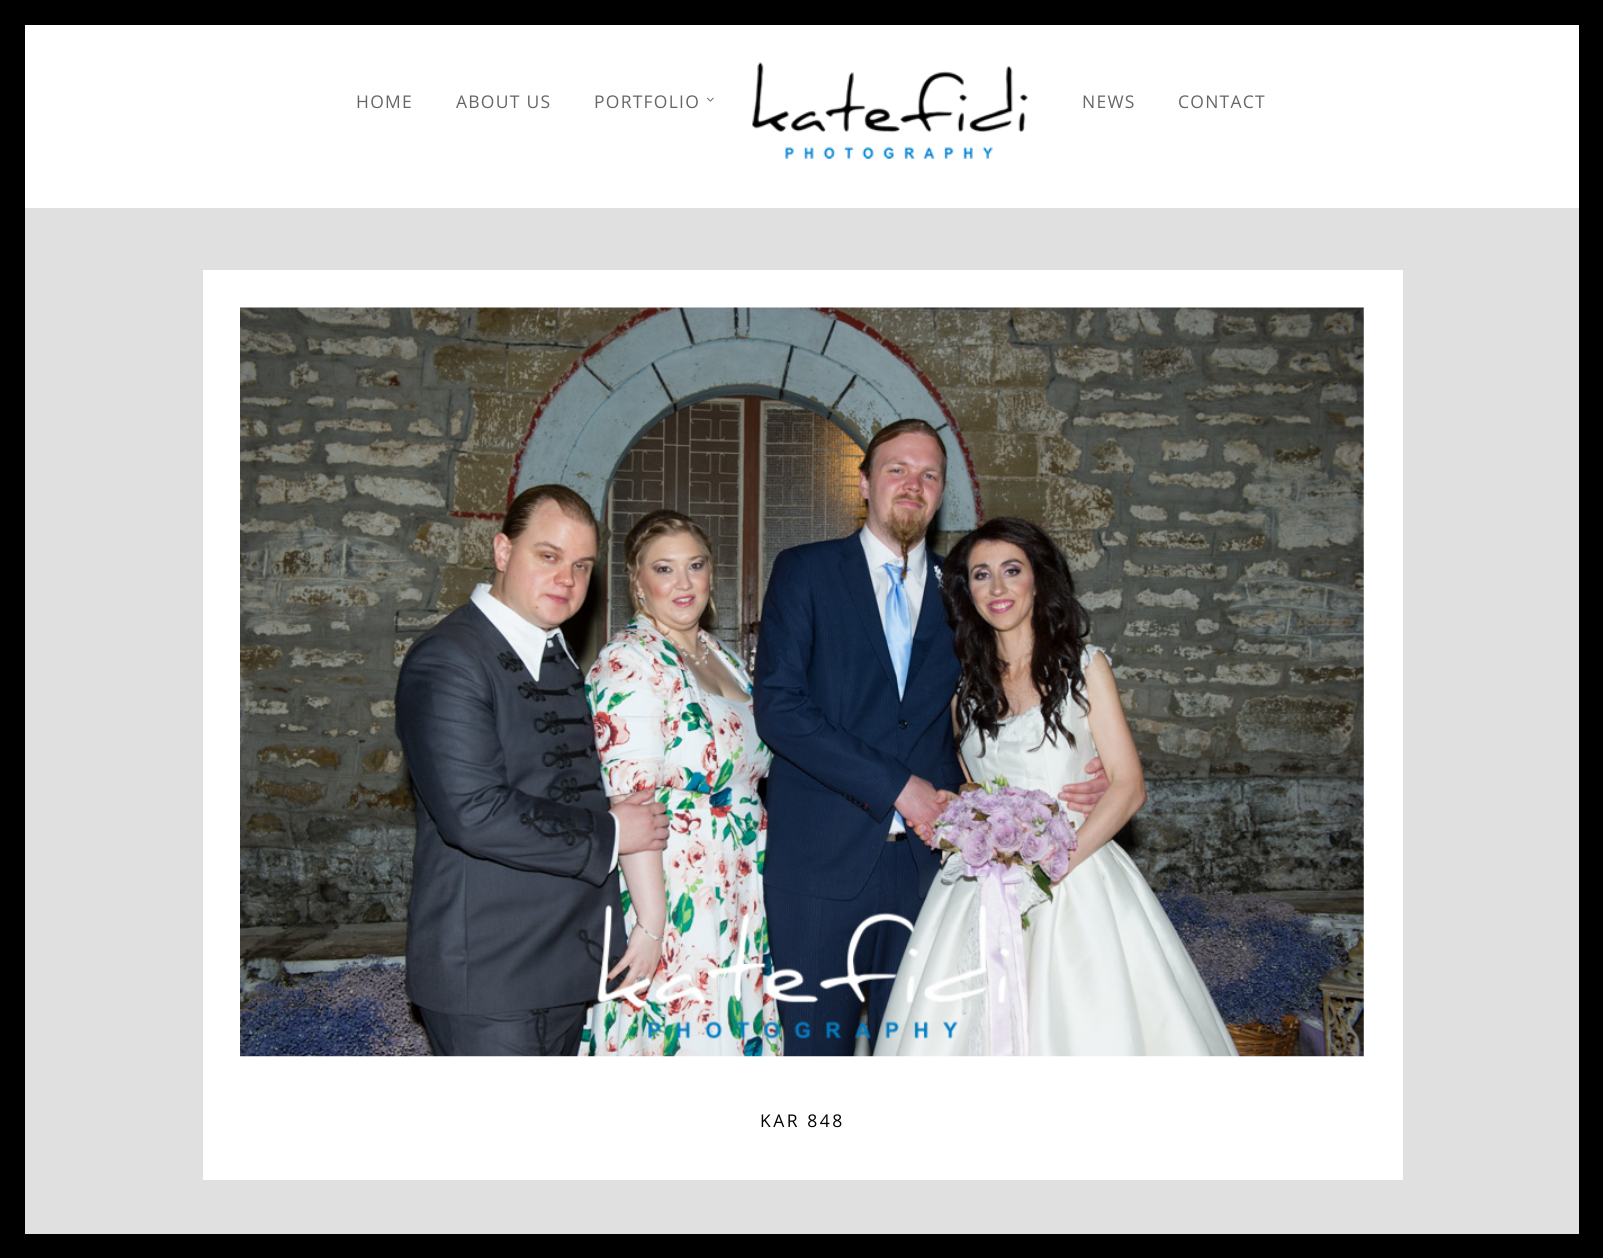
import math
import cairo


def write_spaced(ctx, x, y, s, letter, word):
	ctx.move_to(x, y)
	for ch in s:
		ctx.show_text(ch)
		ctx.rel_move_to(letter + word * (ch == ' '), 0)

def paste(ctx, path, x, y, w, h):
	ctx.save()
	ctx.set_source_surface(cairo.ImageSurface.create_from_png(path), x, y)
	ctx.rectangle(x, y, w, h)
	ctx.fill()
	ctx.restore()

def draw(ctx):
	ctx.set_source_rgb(1, 1, 1)
	ctx.paint()
	ctx.set_source_rgb(0, 0, 0)
	ctx.rectangle(0, 0, 1603, 25)
	ctx.fill()
	ctx.rectangle(0, 25, 25, 1233)
	ctx.fill()
	ctx.select_font_face('Open Sans')
	ctx.set_font_size(17.5)
	ctx.set_source_rgb(0.4, 0.4, 0.4)
	for x, y, s in [
		(356, 108, 'HOME'),
		(456, 108, 'ABOUT US'),
		(594, 108, 'PORTFOLIO'),
	]:
		write_spaced(ctx, x, y, s, 1.25, 0)
	paste(ctx, 'media/1.png', 706, 97, 8, 5)
	paste(ctx, 'media/2.png', 752, 62, 276, 97)
	write_spaced(ctx, 1082, 108, 'NEWS', 1.25, 0)
	write_spaced(ctx, 1178, 108, 'CONTACT', 1.25, 0)
	ctx.set_source_rgb(0.878, 0.878, 0.878)
	ctx.rectangle(25, 208, 1554, 1026)
	ctx.fill()
	ctx.set_source_rgb(1, 1, 1)
	ctx.rectangle(203, 270, 1200, 910)
	ctx.fill()
	paste(ctx, 'media/3.png', 240, 307, 1124, 750)
	ctx.set_source_rgb(0, 0, 0)
	write_spaced(ctx, 760, 1127, 'KAR 848', 2.5, 0)
	ctx.rectangle(1579, 25, 24, 1233)
	ctx.fill()
	ctx.rectangle(25, 1234, 1554, 24)
	ctx.fill()


surface = cairo.ImageSurface(cairo.FORMAT_RGB24, 1603, 1258)
ctx = cairo.Context(surface)
options = cairo.FontOptions()
options.set_hint_metrics(cairo.HINT_METRICS_OFF)
options.set_hint_style(cairo.HINT_STYLE_NONE)
ctx.set_font_options(options)
ctx.set_miter_limit(4)
draw(ctx)
surface.write_to_png('image.png')
